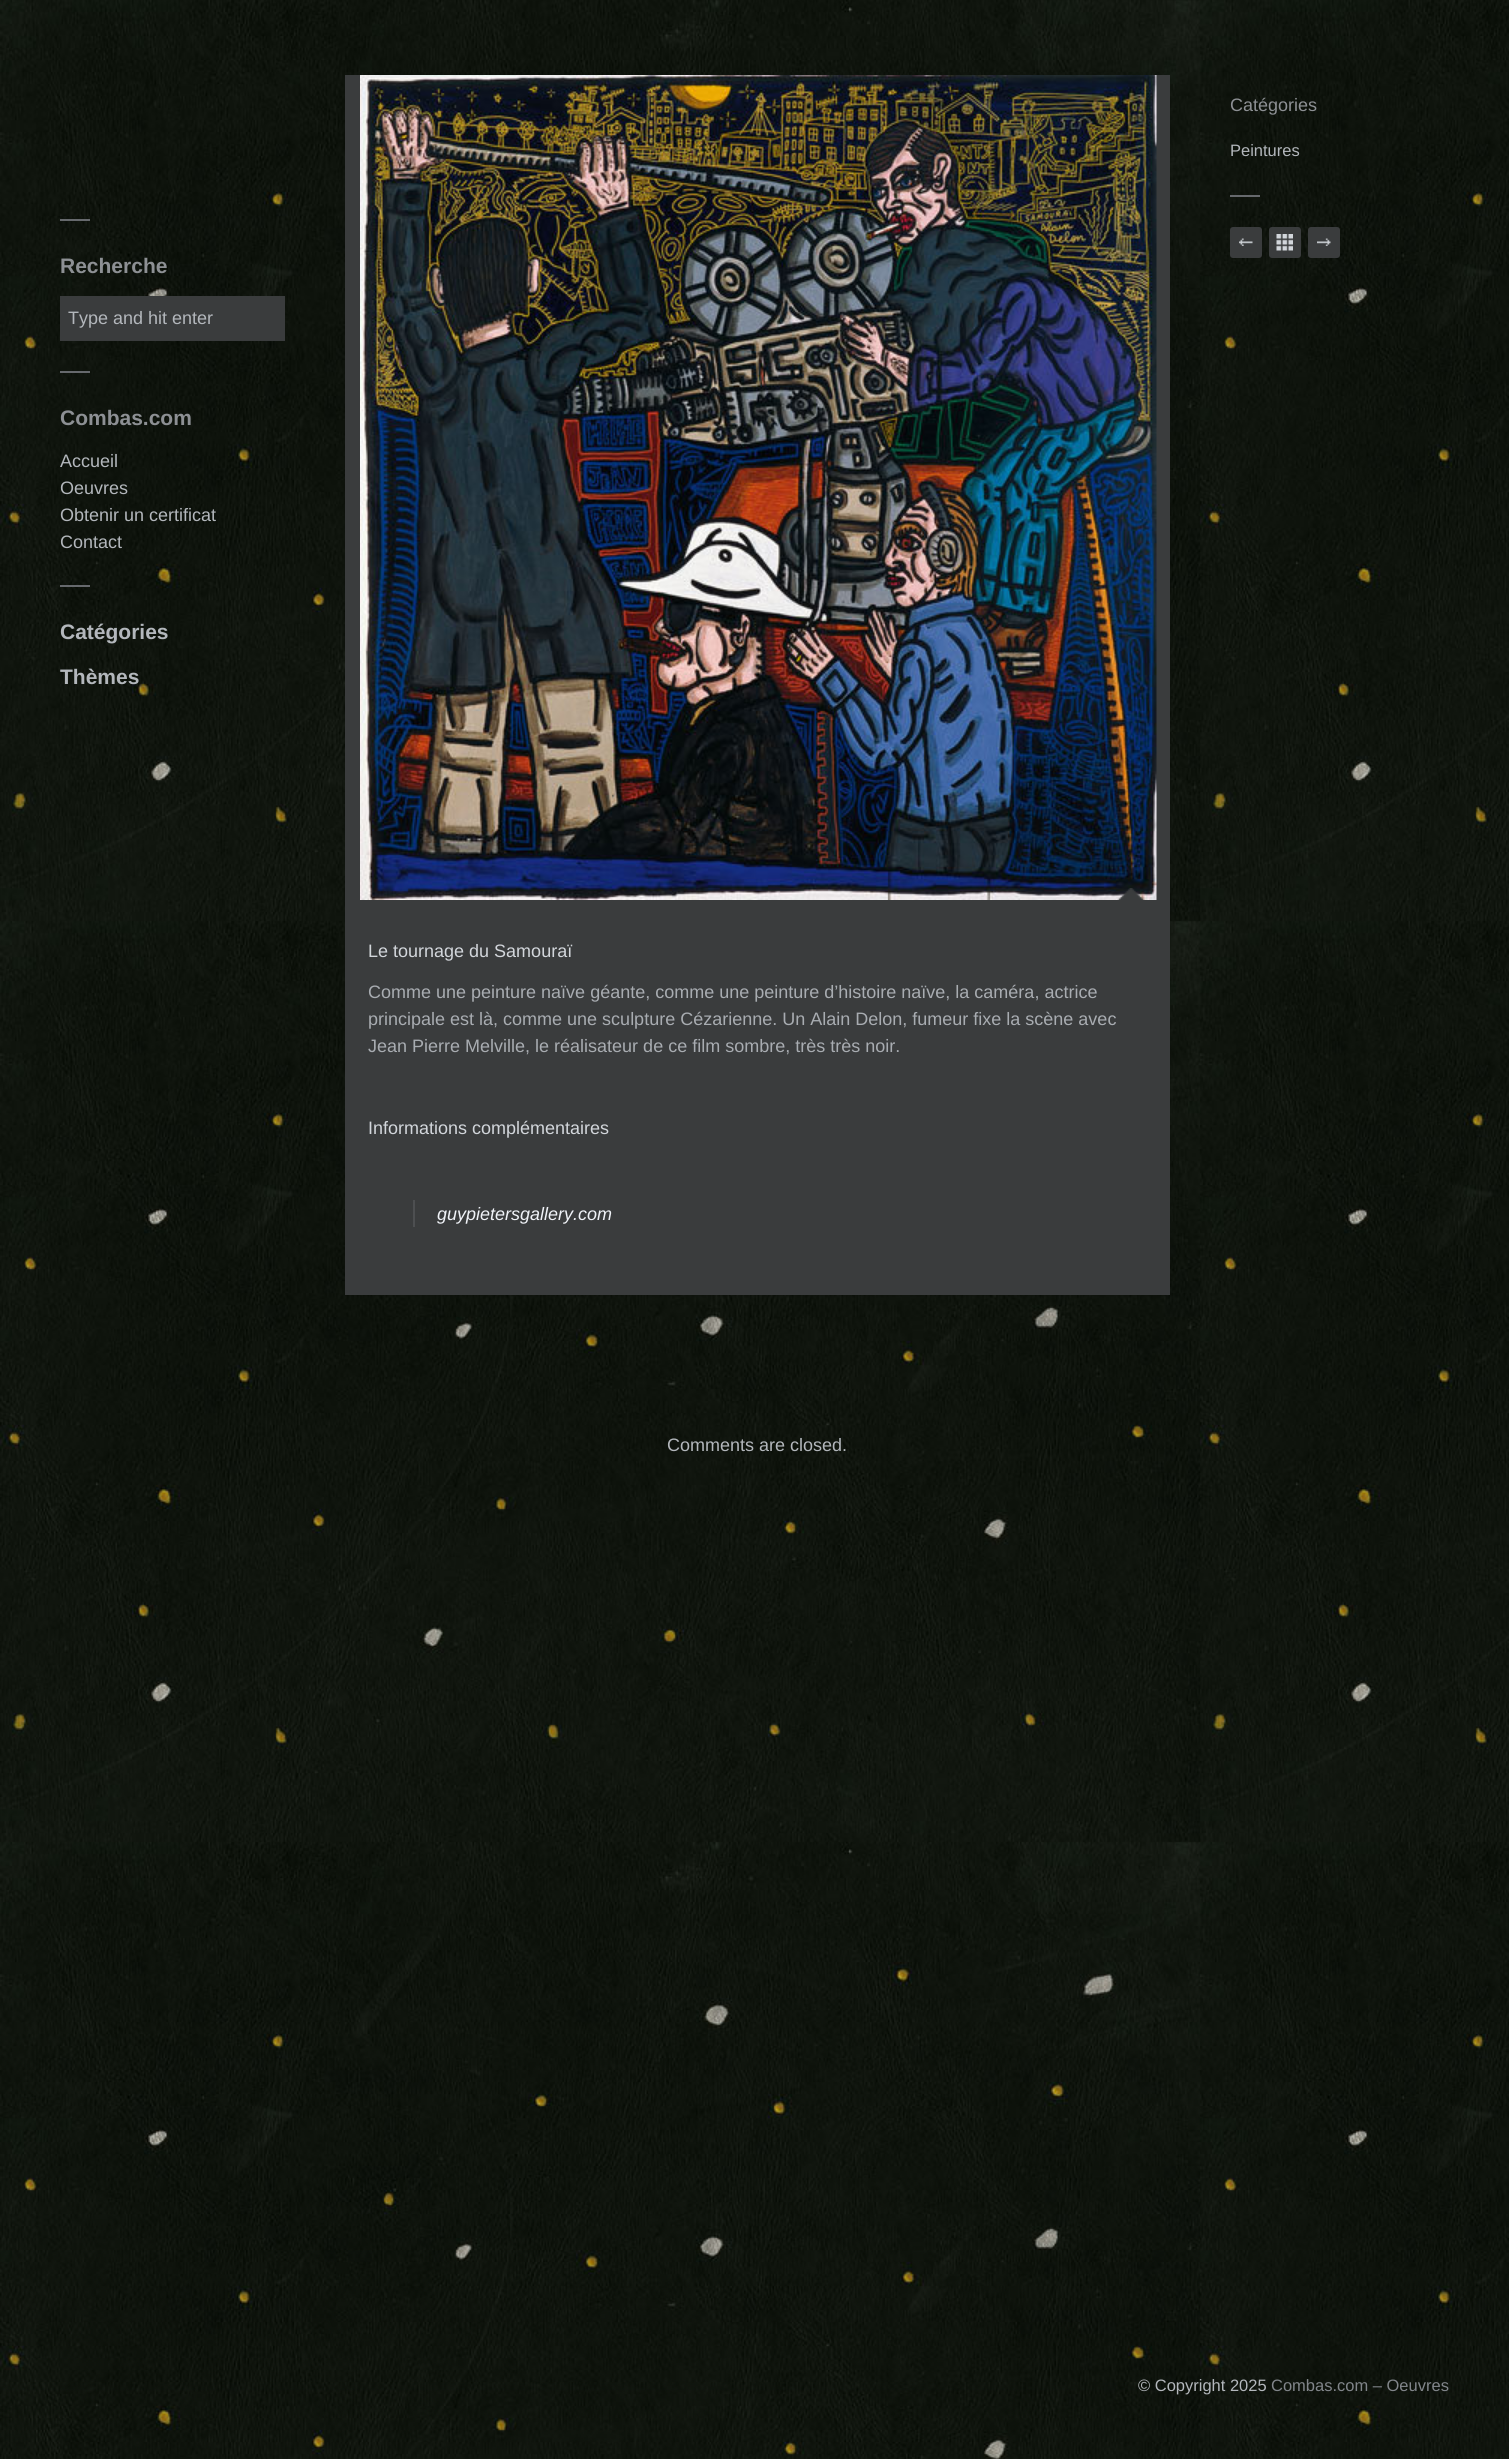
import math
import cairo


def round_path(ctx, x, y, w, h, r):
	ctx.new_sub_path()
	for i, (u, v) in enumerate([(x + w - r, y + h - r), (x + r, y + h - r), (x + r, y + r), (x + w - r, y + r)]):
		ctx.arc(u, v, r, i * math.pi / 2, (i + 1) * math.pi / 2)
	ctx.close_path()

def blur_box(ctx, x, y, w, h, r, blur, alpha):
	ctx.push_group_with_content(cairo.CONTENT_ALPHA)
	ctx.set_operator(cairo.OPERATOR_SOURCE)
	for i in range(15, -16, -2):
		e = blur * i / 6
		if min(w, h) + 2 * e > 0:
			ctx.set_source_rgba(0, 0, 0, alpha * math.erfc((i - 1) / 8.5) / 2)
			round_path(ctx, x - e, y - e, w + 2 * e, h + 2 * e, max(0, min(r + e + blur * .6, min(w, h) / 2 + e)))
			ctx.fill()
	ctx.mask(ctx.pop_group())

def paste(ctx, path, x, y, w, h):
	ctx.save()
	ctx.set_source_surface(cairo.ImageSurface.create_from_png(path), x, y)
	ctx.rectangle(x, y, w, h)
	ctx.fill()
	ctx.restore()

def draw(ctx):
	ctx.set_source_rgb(1, 1, 1)
	ctx.paint()
	paste(ctx, 'media/1.png', 0, 0, 1509, 2459)
	ctx.select_font_face('Liberation Sans')
	ctx.set_font_size(18)
	ctx.set_source_rgb(0.553, 0.565, 0.58)
	ctx.move_to(1230, 111)
	ctx.show_text('Catégories')
	ctx.set_font_size(16.5)
	ctx.set_source_rgb(0.702, 0.718, 0.737)
	ctx.move_to(1230, 156)
	ctx.show_text('Peintures')
	ctx.set_source_rgb(0.4, 0.412, 0.427)
	ctx.rectangle(1230, 195, 30, 2)
	ctx.fill()
	ctx.set_source_rgb(0.227, 0.235, 0.239)
	round_path(ctx, 1230, 227, 32, 31, 3)
	ctx.fill()
	paste(ctx, 'media/2.png', 1239, 238, 14, 8)
	round_path(ctx, 1269, 227, 32, 31, 3)
	ctx.fill()
	paste(ctx, 'media/3.png', 1276, 234, 17, 17)
	round_path(ctx, 1308, 227, 32, 31, 3)
	ctx.fill()
	paste(ctx, 'media/4.png', 1317, 238, 14, 8)
	ctx.set_source_rgb(0.4, 0.412, 0.427)
	ctx.rectangle(60, 219, 30, 2)
	ctx.fill()
	ctx.select_font_face('Liberation Sans', cairo.FONT_SLANT_NORMAL, cairo.FONT_WEIGHT_BOLD)
	ctx.set_font_size(21)
	ctx.set_source_rgb(0.553, 0.565, 0.58)
	ctx.move_to(60, 273)
	ctx.show_text('Recherche')
	ctx.set_source_rgb(0.227, 0.235, 0.239)
	ctx.rectangle(60, 296, 225, 45)
	ctx.fill()
	ctx.select_font_face('Liberation Sans')
	ctx.set_font_size(18)
	ctx.set_source_rgb(0.702, 0.718, 0.737)
	ctx.move_to(68, 324)
	ctx.show_text('Type and hit enter')
	ctx.set_source_rgb(0.4, 0.412, 0.427)
	ctx.rectangle(60, 371, 30, 2)
	ctx.fill()
	ctx.select_font_face('Liberation Sans', cairo.FONT_SLANT_NORMAL, cairo.FONT_WEIGHT_BOLD)
	ctx.set_font_size(21)
	ctx.set_source_rgb(0.553, 0.565, 0.58)
	ctx.move_to(60, 425)
	ctx.show_text('Combas.com')
	ctx.select_font_face('Liberation Sans')
	ctx.set_font_size(18)
	ctx.set_source_rgb(0.702, 0.718, 0.737)
	for x, y, s in [
		(60, 467, 'Accueil'),
		(60, 494, 'Oeuvres'),
		(60, 521, 'Obtenir un certificat'),
		(60, 548, 'Contact'),
	]:
		ctx.move_to(x, y)
		ctx.show_text(s)
	ctx.set_source_rgb(0.4, 0.412, 0.427)
	ctx.rectangle(60, 585, 30, 2)
	ctx.fill()
	ctx.select_font_face('Liberation Sans', cairo.FONT_SLANT_NORMAL, cairo.FONT_WEIGHT_BOLD)
	ctx.set_font_size(21)
	ctx.set_source_rgb(0.702, 0.718, 0.737)
	ctx.move_to(60, 639)
	ctx.show_text('Catégories')
	ctx.move_to(60, 684)
	ctx.show_text('Thèmes')
	ctx.set_source_rgb(0, 0, 0)
	blur_box(ctx, 345, 77, 825, 1219, 0, 1, 0.1)
	ctx.set_source_rgb(0.227, 0.235, 0.239)
	ctx.rectangle(345, 75, 825, 1220)
	ctx.fill()
	paste(ctx, 'media/5.png', 360, 75, 797, 825)
	paste(ctx, 'media/6.png', 1117, 888, 28, 12)
	ctx.select_font_face('Liberation Sans')
	ctx.set_font_size(18)
	ctx.set_source_rgb(0.824, 0.839, 0.859)
	ctx.move_to(368, 957)
	ctx.show_text('Le tournage du Samouraï')
	ctx.set_source_rgb(0.659, 0.675, 0.694)
	for x, y, s in [
		(368, 998, 'Comme une peinture naïve géante, comme une peinture d’histoire naïve, la caméra, actrice'),
		(368, 1025, 'principale est là, comme une sculpture Cézarienne. Un Alain Delon, fumeur fixe la scène avec'),
		(368, 1052, 'Jean Pierre Melville, le réalisateur de ce film sombre, très très noir.'),
	]:
		ctx.move_to(x, y)
		ctx.show_text(s)
	ctx.set_source_rgb(0.824, 0.839, 0.859)
	ctx.move_to(368, 1134)
	ctx.show_text('Informations complémentaires')
	ctx.set_source_rgb(0.302, 0.31, 0.318)
	ctx.rectangle(413, 1200, 2, 27)
	ctx.fill()
	ctx.select_font_face('Liberation Sans', cairo.FONT_SLANT_ITALIC)
	ctx.set_source_rgb(0.941, 0.953, 0.969)
	ctx.move_to(437, 1220)
	ctx.show_text('guypietersgallery.com')
	ctx.select_font_face('Liberation Sans')
	ctx.set_source_rgb(0.702, 0.718, 0.737)
	ctx.move_to(667, 1451)
	ctx.show_text('Comments are closed.')
	ctx.set_font_size(16.5)
	ctx.move_to(1138, 2391)
	ctx.show_text('© Copyright 2025')
	ctx.set_source_rgb(0.506, 0.522, 0.541)
	ctx.move_to(1271, 2391)
	ctx.show_text('Combas.com – Oeuvres')


surface = cairo.ImageSurface(cairo.FORMAT_RGB24, 1509, 2459)
ctx = cairo.Context(surface)
options = cairo.FontOptions()
options.set_hint_metrics(cairo.HINT_METRICS_OFF)
options.set_hint_style(cairo.HINT_STYLE_NONE)
ctx.set_font_options(options)
ctx.set_miter_limit(4)
draw(ctx)
surface.write_to_png('image.png')
